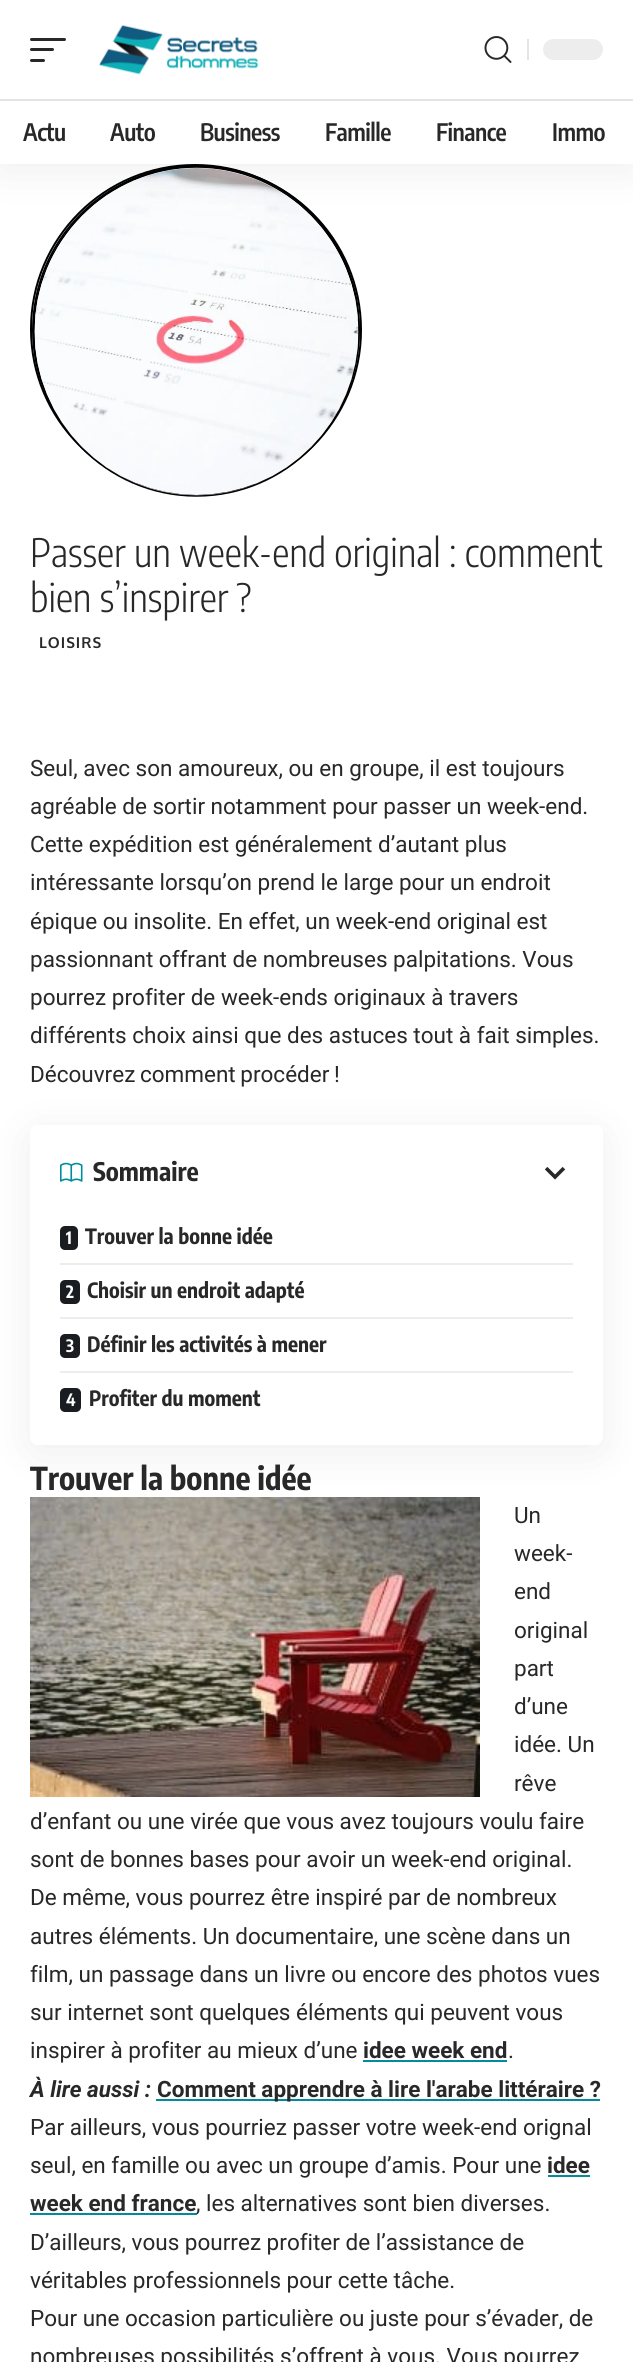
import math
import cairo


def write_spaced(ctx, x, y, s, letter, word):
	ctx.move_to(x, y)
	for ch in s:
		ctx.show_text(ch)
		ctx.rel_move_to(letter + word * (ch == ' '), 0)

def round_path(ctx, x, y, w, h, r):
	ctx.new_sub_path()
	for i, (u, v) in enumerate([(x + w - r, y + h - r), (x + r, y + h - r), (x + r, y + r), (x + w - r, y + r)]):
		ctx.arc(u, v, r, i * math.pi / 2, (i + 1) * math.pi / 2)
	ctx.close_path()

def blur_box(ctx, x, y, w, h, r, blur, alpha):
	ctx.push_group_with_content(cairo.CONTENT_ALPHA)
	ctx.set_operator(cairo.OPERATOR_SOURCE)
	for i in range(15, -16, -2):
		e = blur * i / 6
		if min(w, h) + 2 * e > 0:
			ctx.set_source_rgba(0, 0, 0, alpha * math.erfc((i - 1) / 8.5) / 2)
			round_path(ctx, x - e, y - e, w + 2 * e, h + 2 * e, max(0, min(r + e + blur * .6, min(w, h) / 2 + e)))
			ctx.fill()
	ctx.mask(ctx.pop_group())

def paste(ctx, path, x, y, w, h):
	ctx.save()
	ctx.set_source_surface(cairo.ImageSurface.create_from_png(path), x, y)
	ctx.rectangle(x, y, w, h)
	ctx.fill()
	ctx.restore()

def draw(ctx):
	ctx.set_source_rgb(1, 1, 1)
	ctx.paint()
	ctx.arc(195, 329, 164, 0, 2 * math.pi)
	ctx.set_source_rgb(0, 0, 0)
	ctx.stroke()
	ctx.arc(197, 330, 164, 0, 2 * math.pi)
	ctx.stroke()
	ctx.new_path()
	ctx.move_to(196.5, 167)
	ctx.curve_to(286.5, 167, 359, 241, 359, 331.5)
	ctx.curve_to(359, 422, 286.5, 496, 196.5, 496)
	ctx.curve_to(106.5, 496, 34, 422, 34, 331.5)
	ctx.curve_to(34, 241, 106.5, 167, 196.5, 167)
	ctx.close_path()
	ctx.set_line_width(1.5)
	ctx.stroke()
	paste(ctx, 'media/3.png', 34, 168, 325, 327)
	ctx.set_source_rgb(0, 0, 0)
	blur_box(ctx, 0, 6, 633, 164, 0, 22.5, 0.07)
	ctx.set_source_rgb(1, 1, 1)
	ctx.rectangle(0, 0, 633, 164)
	ctx.fill()
	ctx.set_source_rgb(0.157, 0.157, 0.157)
	round_path(ctx, 30, 38, 36, 3, 1.5)
	ctx.fill()
	round_path(ctx, 30, 48, 24, 3, 1.5)
	ctx.fill()
	round_path(ctx, 30, 59, 15, 3, 1.5)
	ctx.fill()
	paste(ctx, 'media/1.png', 99, 25, 160, 50)
	paste(ctx, 'media/2.png', 484, 36, 28, 27)
	ctx.set_source_rgb(0.894, 0.894, 0.894)
	ctx.rectangle(527, 39, 2, 21)
	ctx.fill()
	ctx.set_source_rgb(0.929, 0.929, 0.929)
	round_path(ctx, 543, 39, 60, 21, 10.5)
	ctx.fill()
	ctx.set_source_rgb(0.894, 0.894, 0.894)
	ctx.rectangle(0, 99, 633, 2)
	ctx.fill()
	ctx.select_font_face('Encode Sans Condensed SemiBold')
	ctx.set_font_size(24)
	ctx.set_source_rgb(0.157, 0.157, 0.157)
	for x, y, s in [
		(23, 141, 'Actu'),
		(110, 141, 'Auto'),
		(200, 141, 'Business'),
		(325, 141, 'Famille'),
		(436, 141, 'Finance'),
		(552, 141, 'Immo'),
	]:
		write_spaced(ctx, x, y, s, -0.5, 0)
	ctx.select_font_face('Encode Sans Condensed Light')
	ctx.set_font_size(39)
	ctx.move_to(30, 567)
	ctx.show_text('Passer un week-end original : comment')
	ctx.move_to(30, 612)
	ctx.show_text('bien s’inspirer ?')
	ctx.select_font_face('Oxygen', cairo.FONT_SLANT_NORMAL, cairo.FONT_WEIGHT_BOLD)
	ctx.set_font_size(15)
	write_spaced(ctx, 39, 648, 'LOISIRS', 1, 0)
	ctx.select_font_face('Roboto')
	ctx.set_font_size(22.5)
	for x, y, s in [
		(30, 776, 'Seul, avec son amoureux, ou en groupe, il est toujours'),
		(30, 814, 'agréable de sortir notamment pour passer un week-end.'),
		(30, 852, 'Cette expédition est généralement d’autant plus'),
		(30, 890, 'intéressante lorsqu’on prend le large pour un endroit'),
		(30, 929, 'épique ou insolite. En effet, un week-end original est'),
		(30, 967, 'passionnant offrant de nombreuses palpitations. Vous'),
		(30, 1005, 'pourrez profiter de week-ends originaux à travers'),
		(30, 1043, 'différents choix ainsi que des astuces tout à fait simples.'),
	]:
		ctx.move_to(x, y)
		ctx.show_text(s)
	write_spaced(ctx, 30, 1082, 'Découvrez comment procéder !', 0, -1)
	paste(ctx, 'media/6.png', 30, 1497, 450, 300)
	ctx.save()
	ctx.set_fill_rule(cairo.FILL_RULE_EVEN_ODD)
	ctx.new_path()
	ctx.move_to(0, 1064)
	ctx.line_to(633, 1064)
	ctx.line_to(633, 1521)
	ctx.line_to(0, 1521)
	ctx.close_path()
	ctx.move_to(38, 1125)
	ctx.line_to(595, 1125)
	ctx.curve_to(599.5, 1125, 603, 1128.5, 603, 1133)
	ctx.line_to(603, 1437)
	ctx.curve_to(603, 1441.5, 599.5, 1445, 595, 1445)
	ctx.line_to(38, 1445)
	ctx.curve_to(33.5, 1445, 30, 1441.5, 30, 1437)
	ctx.line_to(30, 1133)
	ctx.curve_to(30, 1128.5, 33.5, 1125, 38, 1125)
	ctx.close_path()
	ctx.clip()
	ctx.set_source_rgb(0, 0, 0)
	blur_box(ctx, 30, 1133, 573, 319, 8, 22.5, 0.07)
	ctx.restore()
	paste(ctx, 'media/4.png', 60, 1162, 23, 20)
	ctx.select_font_face('Encode Sans Condensed', cairo.FONT_SLANT_NORMAL, cairo.FONT_WEIGHT_BOLD)
	ctx.set_font_size(25.5)
	ctx.move_to(93, 1181)
	ctx.show_text('Sommaire')
	paste(ctx, 'media/5.png', 544, 1166, 22, 14)
	ctx.set_source_rgb(0.098, 0.11, 0.125)
	round_path(ctx, 60, 1226, 18, 24, 5)
	ctx.fill()
	ctx.set_font_size(17)
	ctx.set_source_rgb(1, 1, 1)
	ctx.move_to(66, 1244)
	ctx.show_text('1')
	ctx.set_font_size(21)
	ctx.set_source_rgb(0.157, 0.157, 0.157)
	ctx.move_to(85, 1244)
	ctx.show_text('Trouver la bonne idée')
	ctx.set_source_rgb(0.929, 0.929, 0.929)
	ctx.rectangle(60, 1263, 513, 2)
	ctx.fill()
	ctx.set_source_rgb(0.098, 0.11, 0.125)
	round_path(ctx, 60, 1280, 20, 24, 5)
	ctx.fill()
	ctx.set_font_size(17)
	ctx.set_source_rgb(1, 1, 1)
	ctx.move_to(66, 1298)
	ctx.show_text('2')
	ctx.set_font_size(21)
	ctx.set_source_rgb(0.157, 0.157, 0.157)
	ctx.move_to(87, 1298)
	ctx.show_text('Choisir un endroit adapté')
	ctx.set_source_rgb(0.929, 0.929, 0.929)
	ctx.rectangle(60, 1317, 513, 2)
	ctx.fill()
	ctx.set_source_rgb(0.098, 0.11, 0.125)
	round_path(ctx, 60, 1334, 20, 24, 5)
	ctx.fill()
	ctx.set_font_size(17)
	ctx.set_source_rgb(1, 1, 1)
	ctx.move_to(66, 1352)
	ctx.show_text('3')
	ctx.set_font_size(21)
	ctx.set_source_rgb(0.157, 0.157, 0.157)
	ctx.move_to(87, 1352)
	ctx.show_text('Définir les activités à mener')
	ctx.set_source_rgb(0.929, 0.929, 0.929)
	ctx.rectangle(60, 1371, 513, 2)
	ctx.fill()
	ctx.set_source_rgb(0.098, 0.11, 0.125)
	round_path(ctx, 60, 1388, 21, 24, 5)
	ctx.fill()
	ctx.set_font_size(17)
	ctx.set_source_rgb(1, 1, 1)
	ctx.move_to(66, 1406)
	ctx.show_text('4')
	ctx.set_font_size(21)
	ctx.set_source_rgb(0.157, 0.157, 0.157)
	ctx.move_to(89, 1406)
	ctx.show_text('Profiter du moment')
	ctx.set_font_size(31.5)
	ctx.move_to(30, 1490)
	ctx.show_text('Trouver la bonne idée')
	ctx.select_font_face('Roboto')
	ctx.set_font_size(22.5)
	for x, y, s in [
		(514, 1523, 'Un'),
		(514, 1561, 'week-'),
		(514, 1599, 'end'),
		(514, 1638, 'original'),
		(514, 1676, 'part'),
		(514, 1714, 'd’une'),
		(514, 1752, 'idée. Un'),
		(514, 1791, 'rêve'),
		(30, 1829, 'd’enfant ou une virée que vous avez toujours voulu faire'),
		(30, 1867, 'sont de bonnes bases pour avoir un week-end original.'),
		(30, 1905, 'De même, vous pourrez être inspiré par de nombreux'),
		(30, 1944, 'autres éléments. Un documentaire, une scène dans un'),
		(30, 1982, 'film, un passage dans un livre ou encore des photos vues'),
		(30, 2020, 'sur internet sont quelques éléments qui peuvent vous'),
		(30, 2058, 'inspirer à profiter au mieux d’une'),
	]:
		ctx.move_to(x, y)
		ctx.show_text(s)
	ctx.select_font_face('Roboto', cairo.FONT_SLANT_NORMAL, cairo.FONT_WEIGHT_BOLD)
	ctx.move_to(363, 2058)
	ctx.show_text('idee week end')
	ctx.set_source_rgb(0, 0.549, 0.62)
	ctx.rectangle(363, 2060, 144, 2)
	ctx.fill()
	ctx.select_font_face('Roboto')
	ctx.set_source_rgb(0.157, 0.157, 0.157)
	ctx.move_to(508, 2058)
	ctx.show_text('.')
	ctx.select_font_face('Roboto', cairo.FONT_SLANT_ITALIC, cairo.FONT_WEIGHT_BOLD)
	ctx.move_to(30, 2097)
	ctx.show_text('À lire aussi :')
	ctx.set_source_rgb(0, 0.549, 0.62)
	ctx.rectangle(156, 2099, 444, 2)
	ctx.fill()
	ctx.select_font_face('Roboto', cairo.FONT_SLANT_NORMAL, cairo.FONT_WEIGHT_BOLD)
	ctx.set_source_rgb(0.157, 0.157, 0.157)
	ctx.move_to(157, 2097)
	ctx.show_text('Comment apprendre à lire l\'arabe littéraire ?')
	ctx.select_font_face('Roboto')
	ctx.move_to(30, 2135)
	ctx.show_text('Par ailleurs, vous pourriez passer votre week-end orignal')
	ctx.move_to(30, 2173)
	ctx.show_text('seul, en famille ou avec un groupe d’amis. Pour une')
	ctx.select_font_face('Roboto', cairo.FONT_SLANT_NORMAL, cairo.FONT_WEIGHT_BOLD)
	ctx.move_to(547, 2173)
	ctx.show_text('idee')
	ctx.set_source_rgb(0, 0.549, 0.62)
	ctx.rectangle(548, 2175, 42, 2)
	ctx.fill()
	ctx.set_source_rgb(0.157, 0.157, 0.157)
	ctx.move_to(30, 2211)
	ctx.show_text('week end france')
	ctx.set_source_rgb(0, 0.549, 0.62)
	ctx.rectangle(30, 2213, 167, 2)
	ctx.fill()
	ctx.select_font_face('Roboto')
	ctx.set_source_rgb(0.157, 0.157, 0.157)
	for x, y, s in [
		(196, 2211, ', les alternatives sont bien diverses.'),
		(30, 2250, 'D’ailleurs, vous pourrez profiter de l’assistance de'),
		(30, 2288, 'véritables professionnels pour cette tâche.'),
		(30, 2326, 'Pour une occasion particulière ou juste pour s’évader, de'),
		(30, 2364, 'nombreuses possibilités s’offrent à vous. Vous pourrez'),
	]:
		ctx.move_to(x, y)
		ctx.show_text(s)


surface = cairo.ImageSurface(cairo.FORMAT_RGB24, 633, 2362)
ctx = cairo.Context(surface)
options = cairo.FontOptions()
options.set_hint_metrics(cairo.HINT_METRICS_OFF)
options.set_hint_style(cairo.HINT_STYLE_NONE)
ctx.set_font_options(options)
ctx.set_miter_limit(4)
draw(ctx)
surface.write_to_png('image.png')
